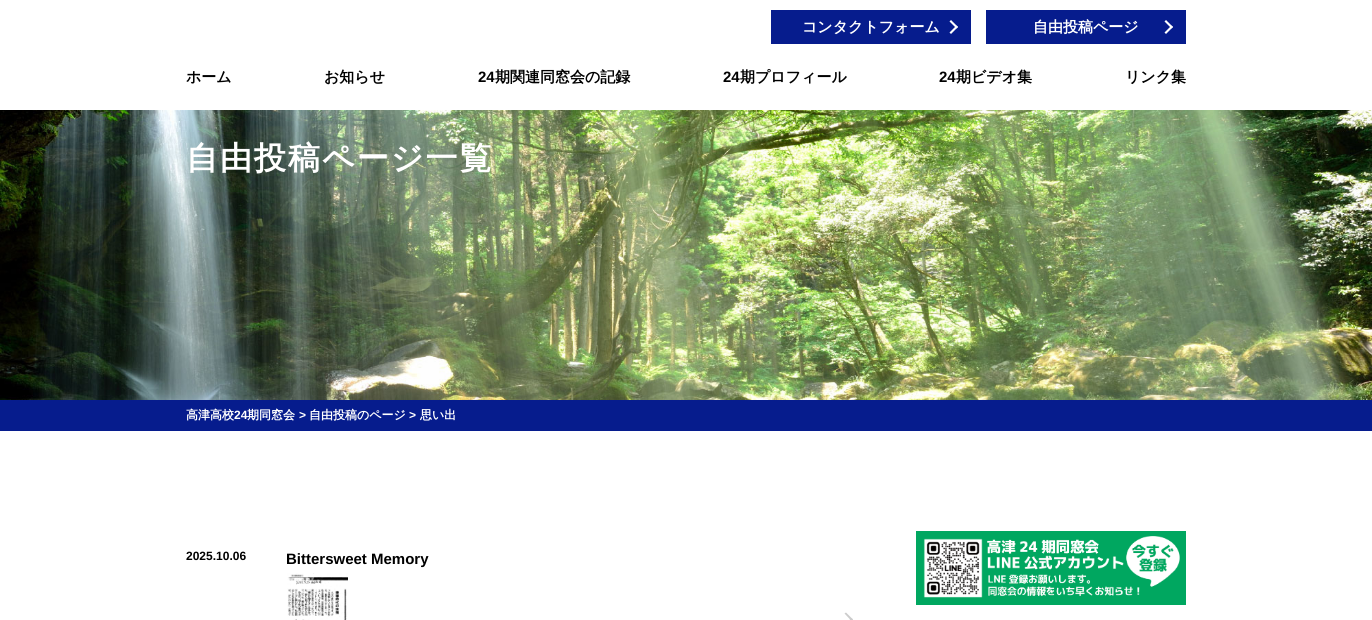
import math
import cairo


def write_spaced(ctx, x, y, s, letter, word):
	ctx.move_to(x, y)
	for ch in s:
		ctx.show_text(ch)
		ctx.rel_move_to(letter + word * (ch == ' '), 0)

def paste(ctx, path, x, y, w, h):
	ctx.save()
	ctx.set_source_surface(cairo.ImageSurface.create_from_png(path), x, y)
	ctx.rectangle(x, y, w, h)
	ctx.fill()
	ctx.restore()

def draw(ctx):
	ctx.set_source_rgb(1, 1, 1)
	ctx.paint()
	ctx.set_source_rgb(0.024, 0.11, 0.553)
	ctx.rectangle(771, 10, 200, 34)
	ctx.fill()
	ctx.select_font_face('WenQuanYi Zen Hei', cairo.FONT_SLANT_NORMAL, cairo.FONT_WEIGHT_BOLD)
	ctx.set_font_size(15)
	ctx.set_source_rgb(1, 1, 1)
	ctx.move_to(802, 32)
	ctx.show_text('コンタクトフォーム')
	ctx.new_path()
	ctx.move_to(951, 20)
	ctx.line_to(958, 27)
	ctx.line_to(956.5, 28.5)
	ctx.line_to(949.5, 21.5)
	ctx.close_path()
	ctx.fill()
	ctx.new_path()
	ctx.move_to(956.5, 25.5)
	ctx.line_to(958, 27)
	ctx.line_to(951, 34)
	ctx.line_to(949.5, 32.5)
	ctx.close_path()
	ctx.fill()
	ctx.set_source_rgb(0.024, 0.11, 0.553)
	ctx.rectangle(986, 10, 200, 34)
	ctx.fill()
	ctx.set_source_rgb(1, 1, 1)
	ctx.move_to(1033, 32)
	ctx.show_text('自由投稿ページ')
	ctx.new_path()
	ctx.move_to(1166, 20)
	ctx.line_to(1173, 27)
	ctx.line_to(1171.5, 28.5)
	ctx.line_to(1164.5, 21.5)
	ctx.close_path()
	ctx.fill()
	ctx.new_path()
	ctx.move_to(1171.5, 25.5)
	ctx.line_to(1173, 27)
	ctx.line_to(1166, 34)
	ctx.line_to(1164.5, 32.5)
	ctx.close_path()
	ctx.fill()
	ctx.set_source_rgb(0, 0, 0)
	ctx.move_to(186, 82)
	ctx.show_text('ホーム')
	ctx.move_to(324, 82)
	ctx.show_text('お知らせ')
	ctx.select_font_face('Liberation Sans', cairo.FONT_SLANT_NORMAL, cairo.FONT_WEIGHT_BOLD)
	ctx.move_to(478, 82)
	ctx.show_text('24')
	ctx.select_font_face('WenQuanYi Zen Hei', cairo.FONT_SLANT_NORMAL, cairo.FONT_WEIGHT_BOLD)
	ctx.move_to(495, 82)
	ctx.show_text('期関連同窓会の記録')
	ctx.select_font_face('Liberation Sans', cairo.FONT_SLANT_NORMAL, cairo.FONT_WEIGHT_BOLD)
	ctx.move_to(723, 82)
	ctx.show_text('24')
	ctx.select_font_face('WenQuanYi Zen Hei', cairo.FONT_SLANT_NORMAL, cairo.FONT_WEIGHT_BOLD)
	ctx.move_to(740, 82)
	ctx.show_text('期プロフィール')
	ctx.select_font_face('Liberation Sans', cairo.FONT_SLANT_NORMAL, cairo.FONT_WEIGHT_BOLD)
	ctx.move_to(939, 82)
	ctx.show_text('24')
	ctx.select_font_face('WenQuanYi Zen Hei', cairo.FONT_SLANT_NORMAL, cairo.FONT_WEIGHT_BOLD)
	ctx.move_to(956, 82)
	ctx.show_text('期ビデオ集')
	ctx.move_to(1125, 82)
	ctx.show_text('リンク集')
	paste(ctx, 'media/1.png', 0, 110, 1372, 290)
	ctx.set_font_size(32)
	ctx.set_source_rgb(1, 1, 1)
	write_spaced(ctx, 186, 169, '自由投稿ページ一覧', 2, 0)
	ctx.set_source_rgb(0.024, 0.11, 0.553)
	ctx.rectangle(0, 400, 1372, 31)
	ctx.fill()
	ctx.set_font_size(12)
	ctx.set_source_rgb(1, 1, 1)
	ctx.move_to(186, 419)
	ctx.show_text('高津高校')
	ctx.select_font_face('Liberation Sans', cairo.FONT_SLANT_NORMAL, cairo.FONT_WEIGHT_BOLD)
	ctx.move_to(234, 419)
	ctx.show_text('24')
	ctx.select_font_face('WenQuanYi Zen Hei', cairo.FONT_SLANT_NORMAL, cairo.FONT_WEIGHT_BOLD)
	ctx.move_to(247, 419)
	ctx.show_text('期同窓会')
	ctx.select_font_face('Liberation Sans', cairo.FONT_SLANT_NORMAL, cairo.FONT_WEIGHT_BOLD)
	ctx.move_to(299, 419)
	ctx.show_text('>')
	ctx.select_font_face('WenQuanYi Zen Hei', cairo.FONT_SLANT_NORMAL, cairo.FONT_WEIGHT_BOLD)
	ctx.move_to(309, 419)
	ctx.show_text('自由投稿のページ')
	ctx.select_font_face('Liberation Sans', cairo.FONT_SLANT_NORMAL, cairo.FONT_WEIGHT_BOLD)
	ctx.move_to(409, 419)
	ctx.show_text('>')
	ctx.select_font_face('WenQuanYi Zen Hei', cairo.FONT_SLANT_NORMAL, cairo.FONT_WEIGHT_BOLD)
	ctx.move_to(420, 419)
	ctx.show_text('思い出')
	ctx.select_font_face('Liberation Sans', cairo.FONT_SLANT_NORMAL, cairo.FONT_WEIGHT_BOLD)
	ctx.set_source_rgb(0, 0, 0)
	ctx.move_to(186, 560)
	ctx.show_text('2025.10.06')
	ctx.set_font_size(15)
	ctx.move_to(286, 564)
	ctx.show_text('Bittersweet Memory')
	paste(ctx, 'media/2.png', 287, 573, 61, 47)
	ctx.set_source_rgb(0.8, 0.8, 0.8)
	ctx.new_path()
	ctx.move_to(846, 612.5)
	ctx.line_to(853, 619.5)
	ctx.line_to(851.5, 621)
	ctx.line_to(844.5, 613.5)
	ctx.close_path()
	ctx.fill()
	ctx.new_path()
	ctx.move_to(851.5, 618)
	ctx.line_to(853, 619.5)
	ctx.line_to(846, 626.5)
	ctx.line_to(844.5, 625)
	ctx.close_path()
	ctx.fill()
	paste(ctx, 'media/3.png', 916, 531, 270, 74)


surface = cairo.ImageSurface(cairo.FORMAT_RGB24, 1372, 620)
ctx = cairo.Context(surface)
options = cairo.FontOptions()
options.set_hint_metrics(cairo.HINT_METRICS_OFF)
options.set_hint_style(cairo.HINT_STYLE_NONE)
ctx.set_font_options(options)
ctx.set_miter_limit(4)
draw(ctx)
surface.write_to_png('image.png')
